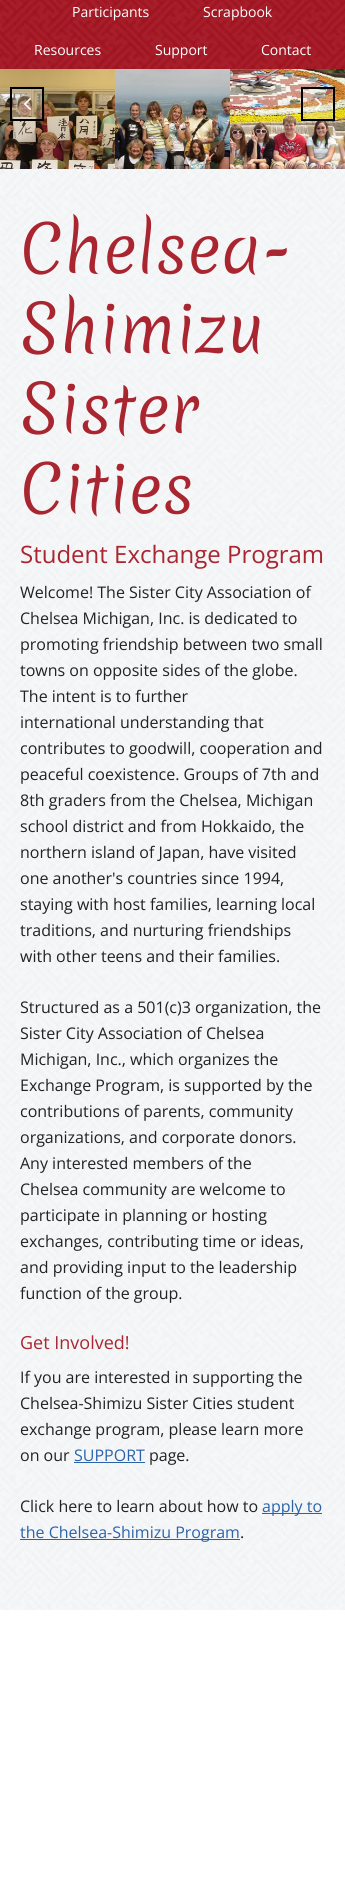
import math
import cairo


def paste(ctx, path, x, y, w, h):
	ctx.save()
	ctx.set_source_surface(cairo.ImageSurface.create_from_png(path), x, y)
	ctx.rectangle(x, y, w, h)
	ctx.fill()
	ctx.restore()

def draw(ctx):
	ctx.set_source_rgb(1, 1, 1)
	ctx.paint()
	paste(ctx, 'media/1.png', 0, 69, 345, 1541)
	paste(ctx, 'media/2.png', 0, 0, 345, 69)
	ctx.select_font_face('Open Sans')
	ctx.set_font_size(14)
	ctx.set_source_rgb(1, 1, 1)
	for x, y, s in [
		(72, 17, 'Participants'),
		(203, 17, 'Scrapbook'),
		(34, 55, 'Resources'),
		(155, 55, 'Support'),
		(261, 55, 'Contact'),
	]:
		ctx.move_to(x, y)
		ctx.show_text(s)
	paste(ctx, 'media/3.png', 0, 69, 115, 100)
	paste(ctx, 'media/4.png', 115, 69, 115, 100)
	paste(ctx, 'media/5.png', 230, 69, 115, 100)
	ctx.set_source_rgba(0.918, 0.918, 0.918, 0.25)
	ctx.rectangle(11, 88, 32, 32)
	ctx.fill_preserve()
	ctx.set_source_rgb(0, 0, 0)
	ctx.stroke()
	paste(ctx, 'media/6.png', 24, 98, 7, 12)
	ctx.set_source_rgba(0.918, 0.918, 0.918, 0.25)
	ctx.rectangle(302, 88, 32, 32)
	ctx.fill_preserve()
	ctx.set_source_rgb(0, 0, 0)
	ctx.stroke()
	paste(ctx, 'media/7.png', 315, 98, 7, 12)
	ctx.select_font_face('Merienda Light')
	ctx.set_font_size(64)
	ctx.set_source_rgb(0.663, 0.145, 0.184)
	for x, y, s in [
		(20, 273, 'Chelsea-'),
		(20, 353, 'Shimizu'),
		(20, 433, 'Sister'),
		(20, 513, 'Cities'),
	]:
		ctx.move_to(x, y)
		ctx.show_text(s)
	ctx.select_font_face('Open Sans')
	ctx.set_font_size(24)
	ctx.move_to(20, 563)
	ctx.show_text('Student Exchange Program')
	ctx.set_font_size(16)
	ctx.set_source_rgb(0.133, 0.133, 0.133)
	for x, y, s in [
		(20, 598, 'Welcome! The Sister City Association of'),
		(20, 624, 'Chelsea Michigan, Inc. is dedicated to'),
		(20, 650, 'promoting friendship between two small'),
		(20, 676, 'towns on opposite sides of the globe.'),
		(20, 702, 'The intent is to further'),
		(20, 728, 'international understanding that'),
		(20, 754, 'contributes to goodwill, cooperation and'),
		(20, 780, 'peaceful coexistence. Groups of 7th and'),
		(20, 806, '8th graders from the Chelsea, Michigan'),
		(20, 832, 'school district and from Hokkaido, the'),
		(20, 858, 'northern island of Japan, have visited'),
		(20, 884, 'one another\'s countries since 1994,'),
		(20, 910, 'staying with host families, learning local'),
		(20, 936, 'traditions, and nurturing friendships'),
		(20, 962, 'with other teens and their families.'),
		(20, 1013, 'Structured as a 501(c)3 organization, the'),
		(20, 1039, 'Sister City Association of Chelsea'),
		(20, 1065, 'Michigan, Inc., which organizes the'),
		(20, 1091, 'Exchange Program, is supported by the'),
		(20, 1117, 'contributions of parents, community'),
		(20, 1143, 'organizations, and corporate donors.'),
		(20, 1169, 'Any interested members of the'),
		(20, 1195, 'Chelsea community are welcome to'),
		(20, 1221, 'participate in planning or hosting'),
		(20, 1247, 'exchanges, contributing time or ideas,'),
		(20, 1273, 'and providing input to the leadership'),
		(20, 1299, 'function of the group.'),
	]:
		ctx.move_to(x, y)
		ctx.show_text(s)
	ctx.set_font_size(18)
	ctx.set_source_rgb(0.663, 0.145, 0.184)
	ctx.move_to(20, 1349)
	ctx.show_text('Get Involved!')
	ctx.set_font_size(16)
	ctx.set_source_rgb(0.133, 0.133, 0.133)
	for x, y, s in [
		(20, 1383, 'If you are interested in supporting the'),
		(20, 1409, 'Chelsea-Shimizu Sister Cities student'),
		(20, 1435, 'exchange program, please learn more'),
		(20, 1461, 'on our'),
	]:
		ctx.move_to(x, y)
		ctx.show_text(s)
	ctx.set_source_rgb(0.169, 0.388, 0.671)
	ctx.move_to(74, 1461)
	ctx.show_text('SUPPORT')
	ctx.rectangle(74, 1462, 71, 1)
	ctx.fill()
	ctx.set_source_rgb(0.133, 0.133, 0.133)
	ctx.move_to(149, 1461)
	ctx.show_text('page.')
	ctx.move_to(20, 1512)
	ctx.show_text('Click here to learn about how to')
	ctx.set_source_rgb(0.169, 0.388, 0.671)
	ctx.rectangle(262, 1513, 60, 1)
	ctx.fill()
	ctx.move_to(262, 1512)
	ctx.show_text('apply to')
	ctx.rectangle(20, 1539, 220, 1)
	ctx.fill()
	ctx.move_to(20, 1538)
	ctx.show_text('the Chelsea-Shimizu Program')
	ctx.set_source_rgb(0.133, 0.133, 0.133)
	ctx.move_to(240, 1538)
	ctx.show_text('.')


surface = cairo.ImageSurface(cairo.FORMAT_RGB24, 345, 1887)
ctx = cairo.Context(surface)
options = cairo.FontOptions()
options.set_hint_metrics(cairo.HINT_METRICS_OFF)
options.set_hint_style(cairo.HINT_STYLE_NONE)
ctx.set_font_options(options)
ctx.set_miter_limit(4)
draw(ctx)
surface.write_to_png('image.png')
